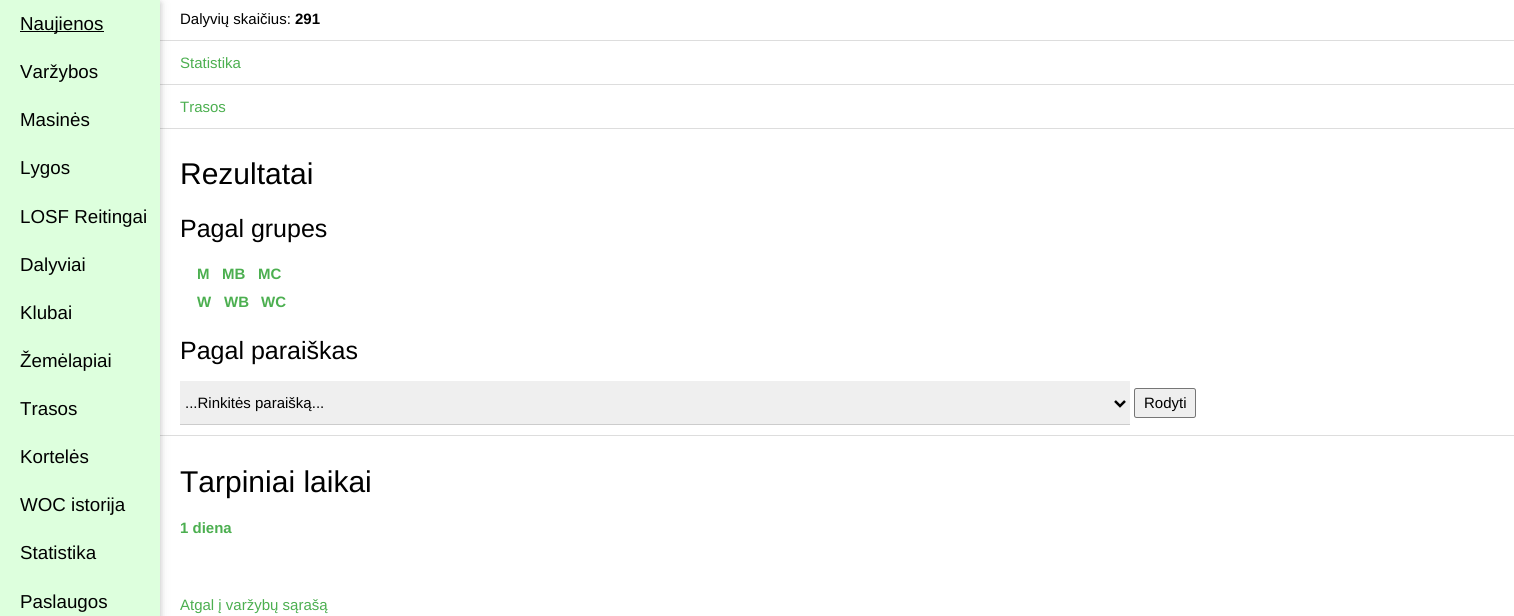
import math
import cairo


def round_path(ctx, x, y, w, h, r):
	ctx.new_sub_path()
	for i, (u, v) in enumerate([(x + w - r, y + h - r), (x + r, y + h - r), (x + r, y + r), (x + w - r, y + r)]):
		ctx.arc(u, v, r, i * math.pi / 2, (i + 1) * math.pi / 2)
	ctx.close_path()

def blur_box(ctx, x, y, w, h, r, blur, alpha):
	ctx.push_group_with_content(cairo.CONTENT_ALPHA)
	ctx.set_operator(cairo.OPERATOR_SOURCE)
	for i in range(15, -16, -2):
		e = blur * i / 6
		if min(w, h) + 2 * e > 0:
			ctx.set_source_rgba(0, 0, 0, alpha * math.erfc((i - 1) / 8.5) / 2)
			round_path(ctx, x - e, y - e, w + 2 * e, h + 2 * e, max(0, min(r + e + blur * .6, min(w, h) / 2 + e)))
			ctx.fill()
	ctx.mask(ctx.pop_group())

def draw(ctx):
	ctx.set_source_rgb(1, 1, 1)
	ctx.paint()
	ctx.set_source_rgb(0.867, 0.867, 0.867)
	ctx.rectangle(160, 40, 1354, 1)
	ctx.rectangle(160, 84, 1354, 1)
	ctx.rectangle(160, 128, 1354, 1)
	ctx.rectangle(160, 435, 1354, 1)
	ctx.fill()
	ctx.set_source_rgb(0, 0, 0)
	blur_box(ctx, 0, 3, 160, 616, 0, 6, 0.12)
	blur_box(ctx, 0, 3, 160, 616, 0, 3, 0.16)
	ctx.set_source_rgb(0.867, 1, 0.867)
	ctx.rectangle(0, 96, 160, 520)
	ctx.rectangle(0, 0, 160, 96)
	ctx.fill()
	ctx.set_source_rgb(0, 0, 0)
	ctx.rectangle(20, 31, 84, 1)
	ctx.fill()
	ctx.select_font_face('Liberation Sans')
	ctx.set_font_size(18.75)
	for x, y, s in [
		(20, 30, 'Naujienos'),
		(20, 78, 'Varžybos'),
		(20, 126, 'Masinės'),
		(20, 174, 'Lygos'),
		(20, 223, 'LOSF Reitingai'),
		(20, 271, 'Dalyviai'),
		(20, 319, 'Klubai'),
		(20, 367, 'Žemėlapiai'),
		(20, 415, 'Trasos'),
		(20, 463, 'Kortelės'),
		(20, 511, 'WOC istorija'),
		(20, 559, 'Statistika'),
		(20, 608, 'Paslaugos'),
	]:
		ctx.move_to(x, y)
		ctx.show_text(s)
	ctx.set_font_size(15)
	ctx.move_to(180, 24)
	ctx.show_text('Dalyvių skaičius:')
	ctx.select_font_face('Liberation Sans', cairo.FONT_SLANT_NORMAL, cairo.FONT_WEIGHT_BOLD)
	ctx.move_to(295, 24)
	ctx.show_text('291')
	ctx.select_font_face('Liberation Sans')
	ctx.set_source_rgb(0.298, 0.686, 0.314)
	ctx.move_to(180, 68)
	ctx.show_text('Statistika')
	ctx.move_to(180, 112)
	ctx.show_text('Trasos')
	ctx.set_font_size(30)
	ctx.set_source_rgb(0, 0, 0)
	ctx.move_to(180, 184)
	ctx.show_text('Rezultatai')
	ctx.set_font_size(25)
	ctx.move_to(180, 237)
	ctx.show_text('Pagal grupes')
	ctx.select_font_face('Liberation Sans', cairo.FONT_SLANT_NORMAL, cairo.FONT_WEIGHT_BOLD)
	ctx.set_font_size(15)
	ctx.set_source_rgb(0.298, 0.686, 0.314)
	for x, y, s in [
		(197, 279, 'M'),
		(222, 279, 'MB'),
		(258, 279, 'MC'),
		(197, 307, 'W'),
		(224, 307, 'WB'),
		(261, 307, 'WC'),
	]:
		ctx.move_to(x, y)
		ctx.show_text(s)
	ctx.select_font_face('Liberation Sans')
	ctx.set_font_size(25)
	ctx.set_source_rgb(0, 0, 0)
	ctx.move_to(180, 359)
	ctx.show_text('Pagal paraiškas')
	ctx.set_source_rgb(0.937, 0.937, 0.937)
	ctx.rectangle(180, 381, 950, 43)
	ctx.fill()
	ctx.set_source_rgb(0.8, 0.8, 0.8)
	ctx.rectangle(180, 424, 950, 1)
	ctx.fill()
	ctx.new_path()
	ctx.move_to(1115, 401)
	ctx.line_to(1120, 406)
	ctx.line_to(1125, 401)
	ctx.set_source_rgb(0, 0, 0)
	ctx.set_line_width(2.5)
	ctx.stroke()
	ctx.set_font_size(15)
	ctx.move_to(185, 408)
	ctx.show_text('...Rinkitės paraišką...')
	ctx.set_source_rgb(0.937, 0.937, 0.937)
	round_path(ctx, 1134.5, 388.5, 61, 29, 2)
	ctx.fill_preserve()
	ctx.set_source_rgb(0.463, 0.463, 0.463)
	ctx.set_line_width(1)
	ctx.stroke()
	ctx.set_source_rgb(0, 0, 0)
	ctx.move_to(1144, 408)
	ctx.show_text('Rodyti')
	ctx.set_font_size(30)
	ctx.move_to(180, 492)
	ctx.show_text('Tarpiniai laikai')
	ctx.select_font_face('Liberation Sans', cairo.FONT_SLANT_NORMAL, cairo.FONT_WEIGHT_BOLD)
	ctx.set_font_size(15)
	ctx.set_source_rgb(0.298, 0.686, 0.314)
	ctx.move_to(180, 533)
	ctx.show_text('1 diena')
	ctx.select_font_face('Liberation Sans')
	ctx.move_to(180, 610)
	ctx.show_text('Atgal į varžybų sąrašą')


surface = cairo.ImageSurface(cairo.FORMAT_RGB24, 1514, 616)
ctx = cairo.Context(surface)
options = cairo.FontOptions()
options.set_hint_metrics(cairo.HINT_METRICS_OFF)
options.set_hint_style(cairo.HINT_STYLE_NONE)
ctx.set_font_options(options)
ctx.set_miter_limit(4)
draw(ctx)
surface.write_to_png('image.png')
